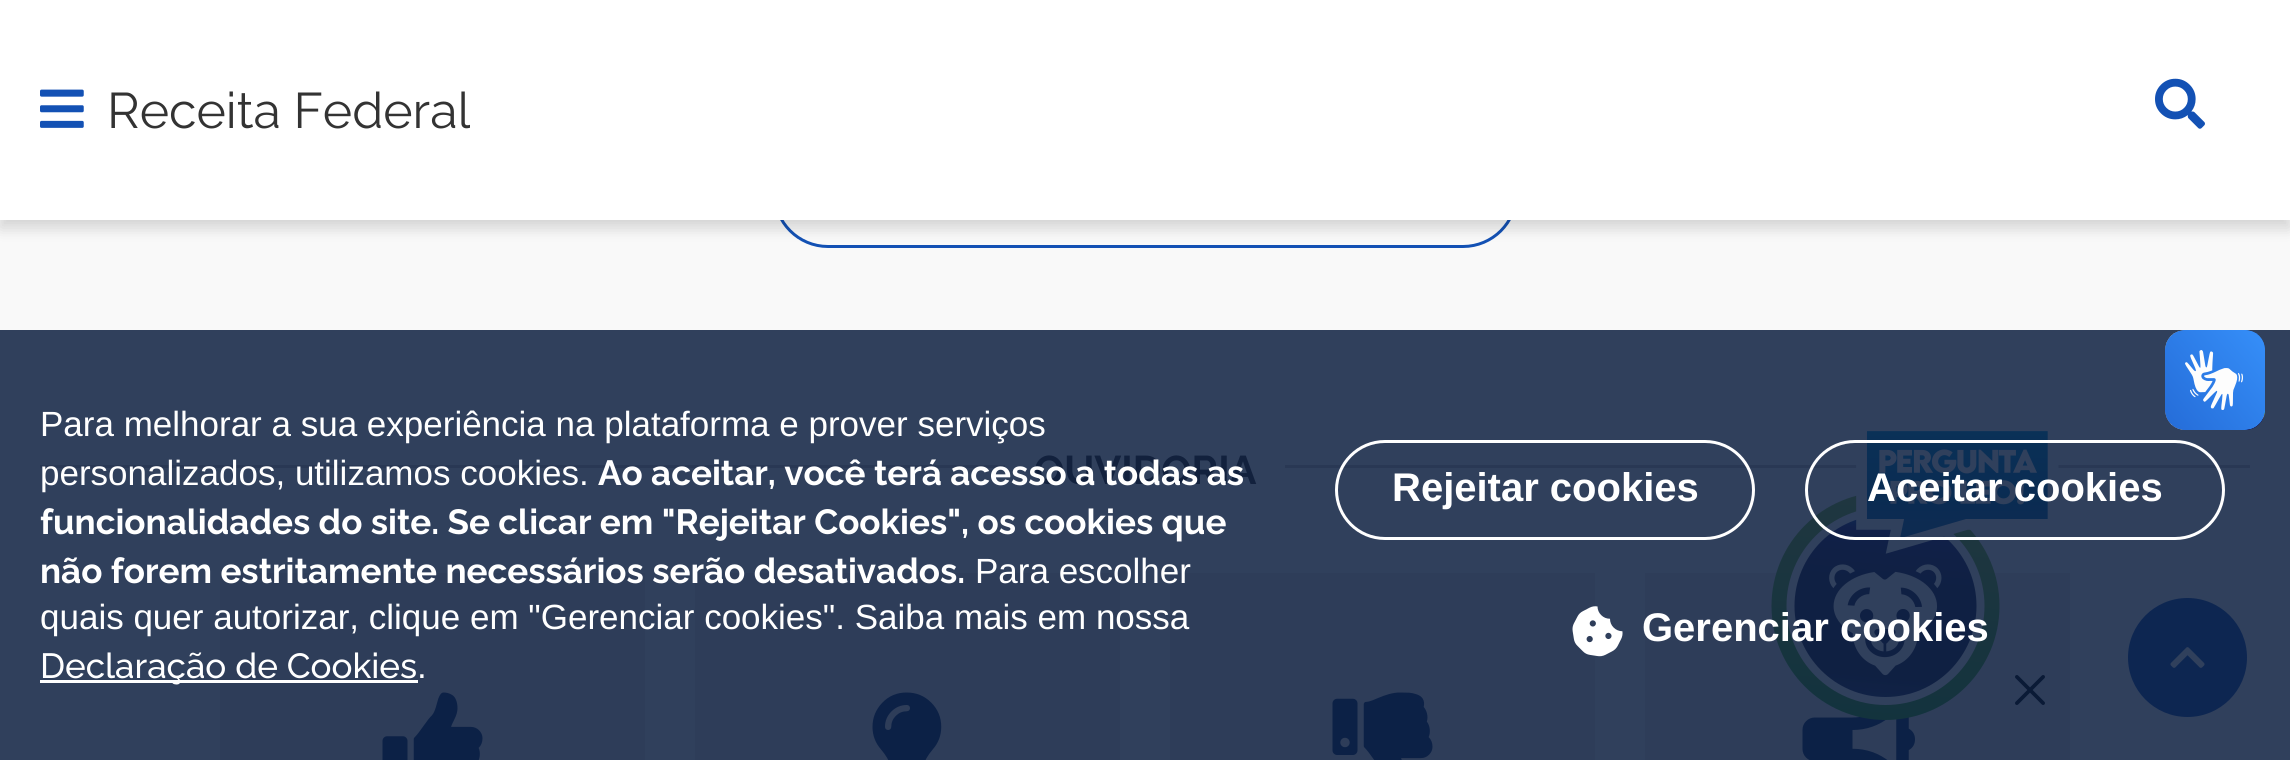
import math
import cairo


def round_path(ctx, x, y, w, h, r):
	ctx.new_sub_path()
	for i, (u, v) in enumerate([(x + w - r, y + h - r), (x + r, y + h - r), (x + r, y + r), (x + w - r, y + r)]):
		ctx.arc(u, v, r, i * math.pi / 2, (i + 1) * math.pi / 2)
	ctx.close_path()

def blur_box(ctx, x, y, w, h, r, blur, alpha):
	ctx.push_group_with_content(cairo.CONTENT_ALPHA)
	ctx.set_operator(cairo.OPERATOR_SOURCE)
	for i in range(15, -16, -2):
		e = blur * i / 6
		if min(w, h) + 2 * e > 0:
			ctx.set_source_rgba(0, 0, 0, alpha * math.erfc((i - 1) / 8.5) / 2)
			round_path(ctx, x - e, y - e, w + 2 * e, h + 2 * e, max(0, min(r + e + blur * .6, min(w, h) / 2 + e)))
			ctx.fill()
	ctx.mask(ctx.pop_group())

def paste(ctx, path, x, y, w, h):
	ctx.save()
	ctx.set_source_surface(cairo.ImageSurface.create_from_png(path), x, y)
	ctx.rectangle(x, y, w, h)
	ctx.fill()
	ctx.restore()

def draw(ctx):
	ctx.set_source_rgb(0.188, 0.251, 0.361)
	ctx.paint()
	ctx.set_source_rgb(0.973, 0.973, 0.973)
	ctx.rectangle(0, 220, 2290, 110)
	ctx.fill()
	round_path(ctx, 774.5, 134.5, 742, 112, 53.5)
	ctx.set_source_rgb(0.075, 0.318, 0.706)
	ctx.set_line_width(3)
	ctx.stroke()
	ctx.set_source_rgb(0, 0, 0)
	blur_box(ctx, 0, 8, 2290, 220, 0, 7.5, 0.16)
	ctx.set_source_rgb(1, 1, 1)
	ctx.rectangle(0, 0, 2290, 220)
	ctx.fill()
	paste(ctx, 'media/1.png', 40, 89, 44, 39)
	ctx.save()
	ctx.rectangle(108, 75, 362, 68)
	ctx.clip()
	ctx.select_font_face('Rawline')
	ctx.set_font_size(50)
	ctx.set_source_rgb(0.2, 0.2, 0.2)
	ctx.move_to(107, 128)
	ctx.show_text('Receita Federal')
	ctx.restore()
	paste(ctx, 'media/2.png', 2155, 78, 50, 51)
	paste(ctx, 'media/3.png', 2165, 330, 100, 100)
	paste(ctx, 'media/4.png', 2165, 330, 100, 100)
	ctx.select_font_face('Liberation Sans')
	ctx.set_font_size(35)
	ctx.move_to(40, 436)
	ctx.show_text('Para melhorar a sua experiência na plataforma e prover serviços')
	ctx.set_source_rgb(0.161, 0.22, 0.329)
	ctx.rectangle(40, 465, 965, 3)
	ctx.fill()
	ctx.set_source_rgb(1, 1, 1)
	ctx.move_to(40, 485)
	ctx.show_text('personalizados, utilizamos cookies.')
	ctx.select_font_face('Rawline', cairo.FONT_SLANT_NORMAL, cairo.FONT_WEIGHT_BOLD)
	ctx.set_font_size(40)
	ctx.set_source_rgb(0.071, 0.129, 0.239)
	ctx.move_to(1034, 484)
	ctx.show_text('OUVIDORIA')
	ctx.set_font_size(35)
	ctx.set_source_rgb(1, 1, 1)
	ctx.move_to(598, 485)
	ctx.show_text('Ao aceitar, você terá acesso a todas as')
	ctx.move_to(40, 534)
	ctx.show_text('funcionalidades do site. Se clicar em "Rejeitar Cookies", os cookies que')
	ctx.set_source_rgb(0.18, 0.239, 0.349)
	ctx.rectangle(220, 573, 425, 187)
	ctx.fill()
	ctx.rectangle(695, 573, 425, 187)
	ctx.fill()
	ctx.set_source_rgb(1, 1, 1)
	ctx.move_to(40, 583)
	ctx.show_text('não forem estritamente necessários serão desativados.')
	ctx.set_source_rgb(0.18, 0.239, 0.349)
	ctx.rectangle(1170, 573, 425, 187)
	ctx.fill()
	ctx.select_font_face('Liberation Sans')
	ctx.set_source_rgb(1, 1, 1)
	ctx.move_to(975, 583)
	ctx.show_text('Para escolher')
	ctx.move_to(40, 629)
	ctx.show_text('quais quer autorizar, clique em "Gerenciar cookies". Saiba mais em nossa')
	ctx.rectangle(40, 680, 378, 3)
	ctx.fill()
	ctx.select_font_face('Rawline Medium')
	ctx.move_to(40, 678)
	ctx.show_text('Declaração de Cookies')
	ctx.select_font_face('Liberation Sans')
	ctx.move_to(417, 678)
	ctx.show_text('.')
	ctx.set_source_rgb(0.161, 0.22, 0.329)
	ctx.rectangle(1285, 465, 965, 3)
	ctx.fill()
	round_path(ctx, 1336.5, 441.5, 417, 97, 48.5)
	ctx.set_source_rgb(1, 1, 1)
	ctx.stroke()
	ctx.select_font_face('Liberation Sans', cairo.FONT_SLANT_NORMAL, cairo.FONT_WEIGHT_BOLD)
	ctx.set_font_size(40)
	ctx.move_to(1392, 501)
	ctx.show_text('Rejeitar cookies')
	ctx.set_source_rgb(0.18, 0.239, 0.349)
	ctx.rectangle(1645, 573, 425, 187)
	ctx.fill()
	paste(ctx, 'media/9.png', 1802, 716, 113, 44)
	paste(ctx, 'media/11.png', 1771, 431, 288, 289)
	round_path(ctx, 1806.5, 441.5, 417, 97, 48.5)
	ctx.set_source_rgb(1, 1, 1)
	ctx.stroke()
	ctx.move_to(1867, 501)
	ctx.show_text('Aceitar cookies')
	paste(ctx, 'media/5.png', 1572, 606, 51, 51)
	ctx.move_to(1642, 641)
	ctx.show_text('Gerenciar cookies')
	paste(ctx, 'media/6.png', 382, 692, 101, 68)
	paste(ctx, 'media/7.png', 872, 692, 70, 68)
	paste(ctx, 'media/8.png', 1332, 692, 101, 68)
	ctx.set_source_rgb(0.051, 0.149, 0.318)
	ctx.arc(2187.5, 657.5, 61, 0, 2 * math.pi)
	ctx.fill_preserve()
	ctx.set_source_rgb(0.188, 0.251, 0.361)
	ctx.stroke()
	paste(ctx, 'media/10.png', 2170, 647, 35, 21)
	paste(ctx, 'media/12.png', 2015, 675, 30, 30)


surface = cairo.ImageSurface(cairo.FORMAT_RGB24, 2290, 760)
ctx = cairo.Context(surface)
options = cairo.FontOptions()
options.set_hint_metrics(cairo.HINT_METRICS_OFF)
options.set_hint_style(cairo.HINT_STYLE_NONE)
ctx.set_font_options(options)
ctx.set_miter_limit(4)
draw(ctx)
surface.write_to_png('image.png')
